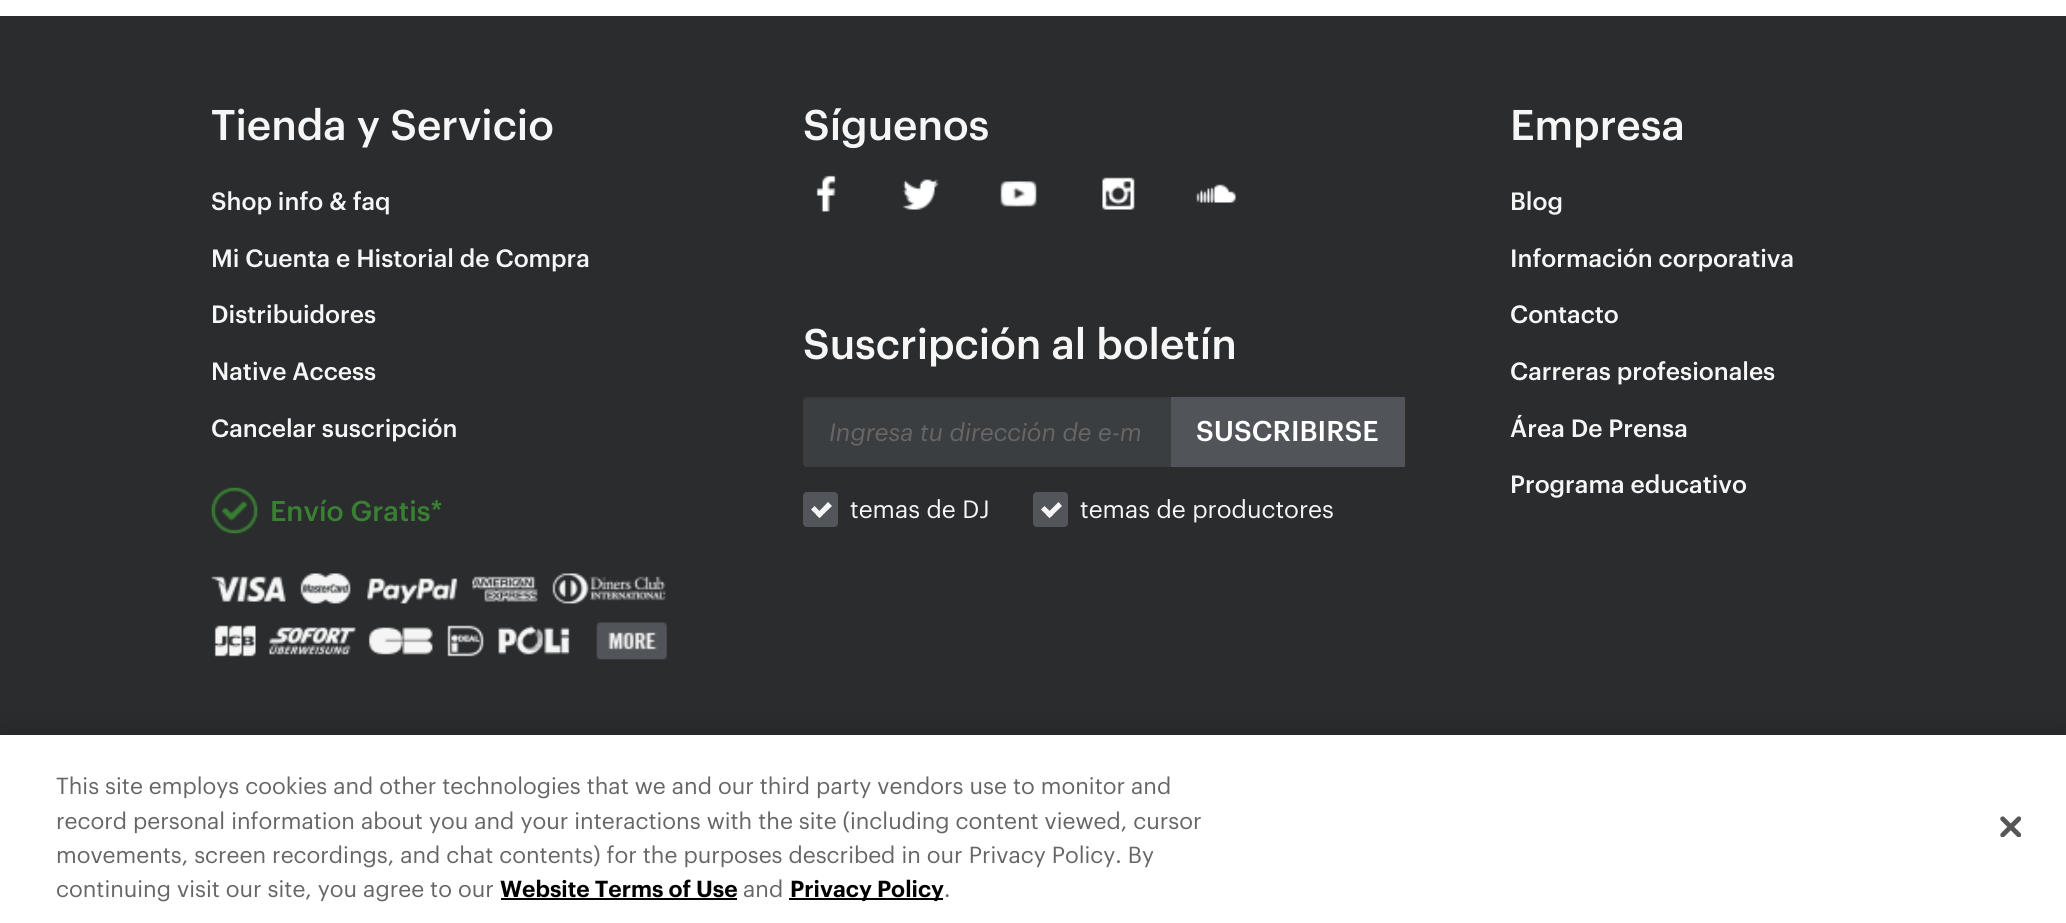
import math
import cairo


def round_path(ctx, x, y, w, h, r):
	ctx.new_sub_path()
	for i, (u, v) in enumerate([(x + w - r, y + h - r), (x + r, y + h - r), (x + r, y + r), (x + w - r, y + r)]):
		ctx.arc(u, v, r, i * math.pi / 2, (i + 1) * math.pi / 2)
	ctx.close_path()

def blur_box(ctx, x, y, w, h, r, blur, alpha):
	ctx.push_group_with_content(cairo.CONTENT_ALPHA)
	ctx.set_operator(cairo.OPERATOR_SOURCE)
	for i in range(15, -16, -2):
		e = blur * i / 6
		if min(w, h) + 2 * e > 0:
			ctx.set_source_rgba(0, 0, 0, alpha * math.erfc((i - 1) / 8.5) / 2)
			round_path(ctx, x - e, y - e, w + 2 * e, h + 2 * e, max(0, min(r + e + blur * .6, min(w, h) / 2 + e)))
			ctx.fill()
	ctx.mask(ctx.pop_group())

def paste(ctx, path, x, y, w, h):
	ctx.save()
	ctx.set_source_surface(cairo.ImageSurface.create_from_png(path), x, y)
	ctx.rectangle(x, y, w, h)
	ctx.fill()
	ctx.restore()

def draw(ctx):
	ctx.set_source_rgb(1, 1, 1)
	ctx.paint()
	ctx.set_source_rgb(0.165, 0.173, 0.18)
	ctx.rectangle(0, 16, 2066, 719)
	ctx.fill()
	ctx.select_font_face('Graphik Medium')
	ctx.set_font_size(42)
	ctx.set_source_rgb(0.961, 0.961, 0.961)
	ctx.move_to(211, 140)
	ctx.show_text('Tienda y Servicio')
	ctx.set_font_size(24.5)
	for x, y, s in [
		(211, 210, 'Shop info & faq'),
		(211, 267, 'Mi Cuenta e Historial de Compra'),
		(211, 323, 'Distribuidores'),
		(211, 380, 'Native Access'),
		(211, 437, 'Cancelar suscripción'),
	]:
		ctx.move_to(x, y)
		ctx.show_text(s)
	paste(ctx, 'media/1.png', 211, 487, 47, 47)
	ctx.set_font_size(28)
	ctx.set_source_rgb(0.224, 0.502, 0.2)
	ctx.move_to(270, 521)
	ctx.show_text('Envío Gratis*')
	paste(ctx, 'media/2.png', 211, 573, 456, 87)
	ctx.set_font_size(42)
	ctx.set_source_rgb(0.961, 0.961, 0.961)
	ctx.move_to(803, 140)
	ctx.show_text('Síguenos')
	paste(ctx, 'media/3.png', 816, 175, 20, 37)
	paste(ctx, 'media/4.png', 902, 179, 37, 31)
	paste(ctx, 'media/5.png', 1000, 181, 37, 26)
	paste(ctx, 'media/6.png', 1102, 177, 33, 33)
	paste(ctx, 'media/7.png', 1196, 184, 40, 19)
	ctx.move_to(803, 359)
	ctx.show_text('Suscripción al boletín')
	ctx.set_source_rgb(0.227, 0.243, 0.255)
	ctx.new_path()
	ctx.move_to(807, 397)
	ctx.line_to(1173, 397)
	ctx.line_to(1173, 467)
	ctx.line_to(807, 467)
	ctx.curve_to(805, 467, 803, 465, 803, 463)
	ctx.line_to(803, 401)
	ctx.curve_to(803, 399, 805, 397, 807, 397)
	ctx.close_path()
	ctx.fill()
	ctx.set_source_rgba(0, 0, 0, 0.07)
	ctx.new_path()
	ctx.move_to(807, 399)
	ctx.line_to(1172, 399)
	ctx.line_to(1172, 467)
	ctx.line_to(1173, 467)
	ctx.line_to(1173, 397)
	ctx.line_to(807, 397)
	ctx.curve_to(804, 397, 803, 399, 803, 402)
	ctx.curve_to(803, 401, 805, 399, 807, 399)
	ctx.close_path()
	ctx.fill()
	ctx.select_font_face('Graphik', cairo.FONT_SLANT_ITALIC)
	ctx.set_font_size(24.5)
	ctx.set_source_rgb(0.4, 0.4, 0.4)
	ctx.move_to(829, 441)
	ctx.show_text('Ingresa tu dirección de e-m')
	ctx.set_source_rgb(0.318, 0.329, 0.349)
	ctx.rectangle(1171, 397, 234, 70)
	ctx.fill()
	ctx.select_font_face('Graphik Medium')
	ctx.set_font_size(28)
	ctx.set_source_rgb(1, 1, 1)
	ctx.move_to(1196, 441)
	ctx.show_text('SUSCRIBIRSE')
	ctx.set_source_rgb(0.322, 0.333, 0.353)
	round_path(ctx, 803, 492, 35, 35, 4)
	ctx.fill()
	ctx.select_font_face('Graphik')
	ctx.set_font_size(24.5)
	ctx.set_source_rgb(0.961, 0.961, 0.961)
	ctx.move_to(850, 518)
	ctx.show_text('temas de DJ')
	ctx.new_path()
	ctx.move_to(828, 502)
	ctx.line_to(832, 506)
	ctx.line_to(819.5, 518)
	ctx.line_to(816, 514.5)
	ctx.close_path()
	ctx.fill()
	ctx.new_path()
	ctx.move_to(814.5, 506)
	ctx.line_to(823, 514.5)
	ctx.line_to(819.5, 518)
	ctx.line_to(811, 509.5)
	ctx.close_path()
	ctx.fill()
	ctx.set_source_rgb(0.322, 0.333, 0.353)
	round_path(ctx, 1033, 492, 35, 35, 4)
	ctx.fill()
	ctx.set_source_rgb(0.961, 0.961, 0.961)
	ctx.move_to(1080, 518)
	ctx.show_text('temas de productores')
	ctx.new_path()
	ctx.move_to(1058.5, 502)
	ctx.line_to(1062, 506)
	ctx.line_to(1049.5, 518)
	ctx.line_to(1046, 514.5)
	ctx.close_path()
	ctx.fill()
	ctx.new_path()
	ctx.move_to(1044.5, 506)
	ctx.line_to(1053.5, 514.5)
	ctx.line_to(1049.5, 518)
	ctx.line_to(1041, 509.5)
	ctx.close_path()
	ctx.fill()
	ctx.select_font_face('Graphik Medium')
	ctx.set_font_size(42)
	ctx.move_to(1510, 140)
	ctx.show_text('Empresa')
	ctx.set_font_size(24.5)
	for x, y, s in [
		(1510, 210, 'Blog'),
		(1510, 267, 'Información corporativa'),
		(1510, 323, 'Contacto'),
		(1510, 380, 'Carreras profesionales'),
		(1510, 437, 'Área De Prensa'),
		(1510, 493, 'Programa educativo'),
	]:
		ctx.move_to(x, y)
		ctx.show_text(s)
	ctx.set_source_rgb(0, 0, 0)
	blur_box(ctx, 0, 735, 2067, 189, 0, 16, 0.2)
	ctx.set_source_rgb(1, 1, 1)
	ctx.rectangle(0, 735, 2066, 188)
	ctx.fill()
	ctx.select_font_face('Graphik')
	ctx.set_font_size(22.75)
	ctx.set_source_rgb(0.4, 0.4, 0.4)
	for x, y, s in [
		(56, 794, 'This site employs cookies and other technologies that we and our third party vendors use to monitor and'),
		(56, 829, 'record personal information about you and your interactions with the site (including content viewed, cursor'),
		(56, 863, 'movements, screen recordings, and chat contents) for the purposes described in our Privacy Policy. By'),
		(56, 897, 'continuing visit our site, you agree to our'),
	]:
		ctx.move_to(x, y)
		ctx.show_text(s)
	ctx.select_font_face('Graphik SemiBold')
	ctx.set_source_rgb(0, 0, 0)
	ctx.move_to(500, 897)
	ctx.show_text('Website Terms of Use')
	ctx.rectangle(501, 898, 236, 2)
	ctx.fill()
	ctx.select_font_face('Graphik')
	ctx.set_source_rgb(0.4, 0.4, 0.4)
	ctx.move_to(743, 897)
	ctx.show_text('and')
	ctx.set_source_rgb(0, 0, 0)
	ctx.rectangle(789, 898, 154, 2)
	ctx.fill()
	ctx.select_font_face('Graphik SemiBold')
	ctx.move_to(790, 897)
	ctx.show_text('Privacy Policy')
	ctx.select_font_face('Graphik')
	ctx.set_source_rgb(0.4, 0.4, 0.4)
	ctx.move_to(944, 897)
	ctx.show_text('.')
	paste(ctx, 'media/8.png', 2000, 816, 21, 21)


surface = cairo.ImageSurface(cairo.FORMAT_RGB24, 2066, 923)
ctx = cairo.Context(surface)
options = cairo.FontOptions()
options.set_hint_metrics(cairo.HINT_METRICS_OFF)
options.set_hint_style(cairo.HINT_STYLE_NONE)
ctx.set_font_options(options)
ctx.set_miter_limit(4)
draw(ctx)
surface.write_to_png('image.png')
